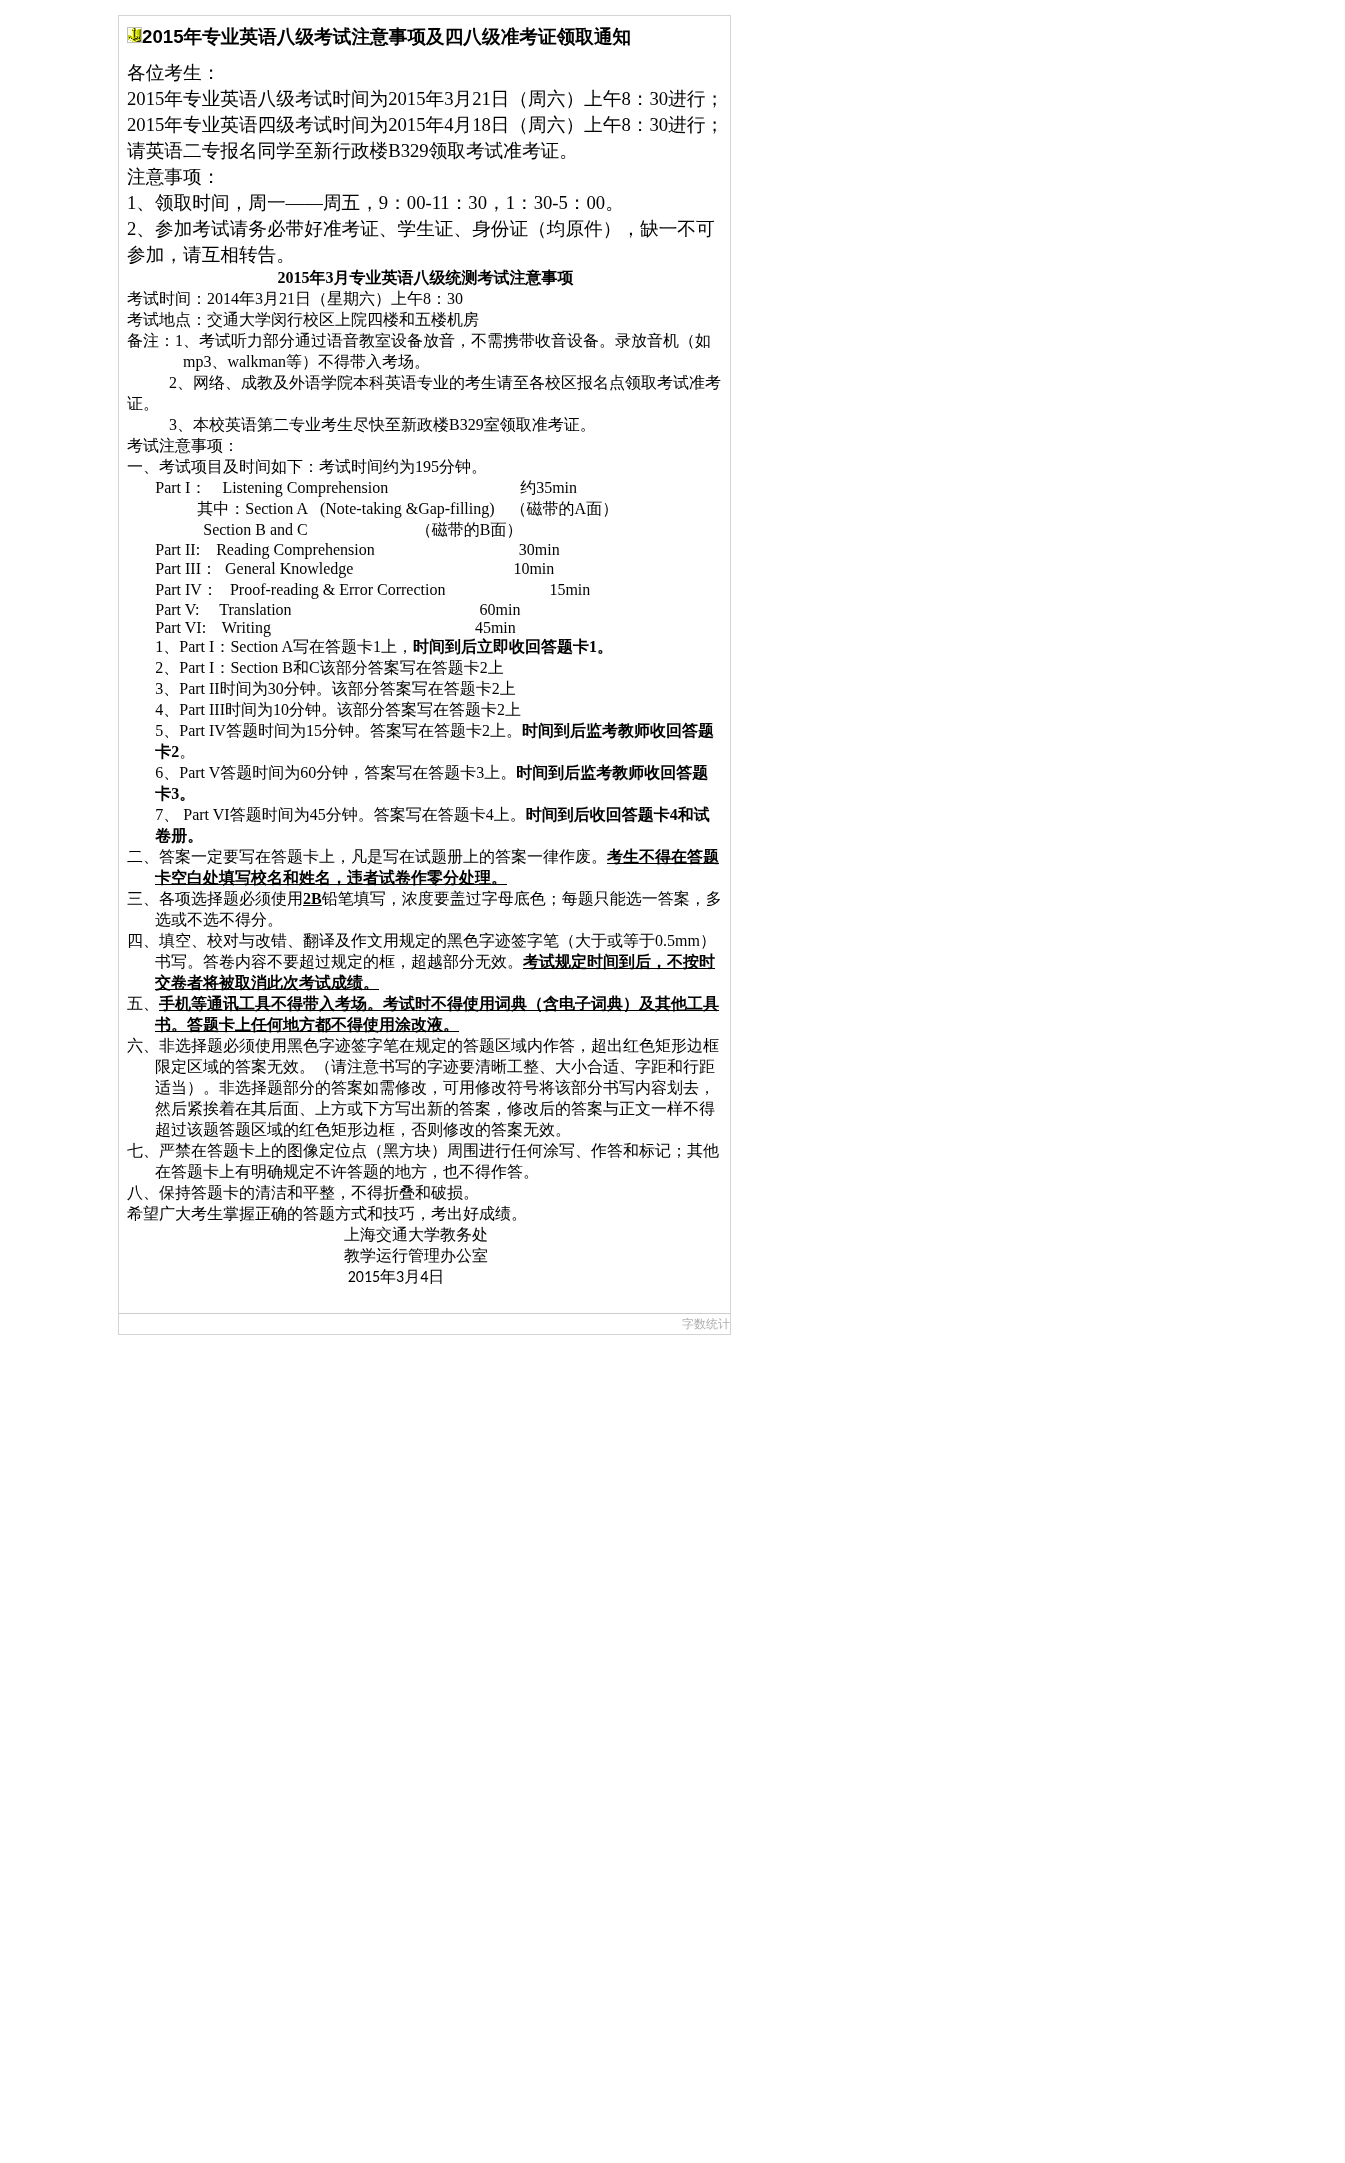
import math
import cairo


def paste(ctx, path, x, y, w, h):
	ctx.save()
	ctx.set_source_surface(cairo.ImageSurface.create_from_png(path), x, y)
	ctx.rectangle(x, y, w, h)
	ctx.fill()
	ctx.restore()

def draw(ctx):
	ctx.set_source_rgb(1, 1, 1)
	ctx.paint()
	ctx.rectangle(118.5, 15.5, 612, 1319)
	ctx.set_source_rgb(0.831, 0.831, 0.831)
	ctx.set_line_width(1)
	ctx.stroke()
	paste(ctx, 'media/1.png', 127, 26, 594, 1258)
	ctx.set_source_rgb(0.8, 0.8, 0.8)
	ctx.rectangle(119, 1313, 611, 1)
	ctx.fill()
	ctx.select_font_face('WenQuanYi Zen Hei Medium')
	ctx.set_font_size(12)
	ctx.set_source_rgb(0.667, 0.667, 0.667)
	ctx.move_to(682, 1328)
	ctx.show_text('字数统计')


surface = cairo.ImageSurface(cairo.FORMAT_RGB24, 1345, 2163)
ctx = cairo.Context(surface)
options = cairo.FontOptions()
options.set_hint_metrics(cairo.HINT_METRICS_OFF)
options.set_hint_style(cairo.HINT_STYLE_NONE)
ctx.set_font_options(options)
ctx.set_miter_limit(4)
draw(ctx)
surface.write_to_png('image.png')
